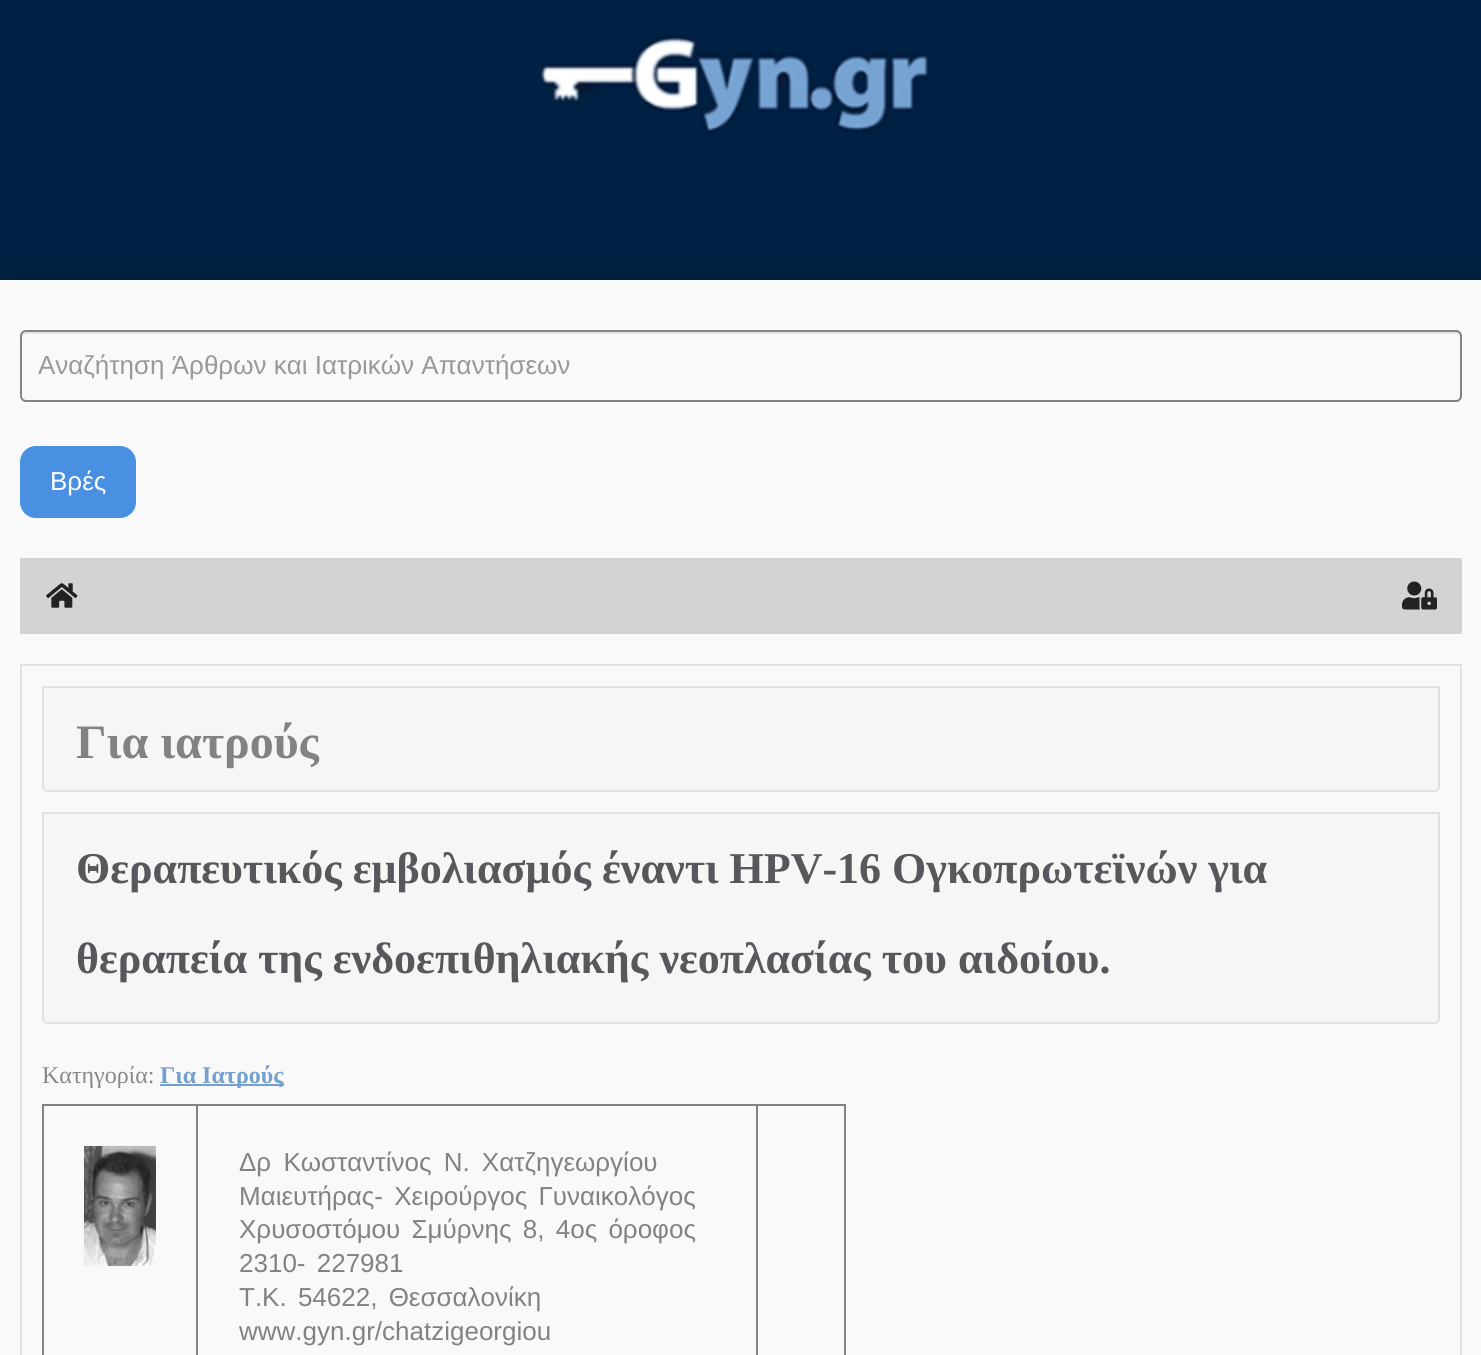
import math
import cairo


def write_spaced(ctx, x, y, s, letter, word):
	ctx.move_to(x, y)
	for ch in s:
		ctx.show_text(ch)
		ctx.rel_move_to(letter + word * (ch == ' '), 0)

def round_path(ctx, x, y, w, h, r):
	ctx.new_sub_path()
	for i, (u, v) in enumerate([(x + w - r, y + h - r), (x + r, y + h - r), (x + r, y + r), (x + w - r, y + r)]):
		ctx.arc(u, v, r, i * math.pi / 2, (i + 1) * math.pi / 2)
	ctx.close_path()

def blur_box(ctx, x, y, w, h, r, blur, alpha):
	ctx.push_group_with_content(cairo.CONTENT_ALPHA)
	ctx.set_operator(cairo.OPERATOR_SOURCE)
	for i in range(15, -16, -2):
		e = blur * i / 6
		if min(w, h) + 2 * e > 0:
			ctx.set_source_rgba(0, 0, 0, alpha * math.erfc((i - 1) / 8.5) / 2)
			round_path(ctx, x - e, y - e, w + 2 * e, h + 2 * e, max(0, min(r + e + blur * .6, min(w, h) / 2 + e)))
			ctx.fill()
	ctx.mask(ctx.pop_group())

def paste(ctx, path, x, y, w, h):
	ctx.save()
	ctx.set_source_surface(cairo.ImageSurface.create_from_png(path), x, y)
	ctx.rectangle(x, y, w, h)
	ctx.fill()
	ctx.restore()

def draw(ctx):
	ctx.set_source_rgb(0, 0.129, 0.263)
	ctx.paint()
	paste(ctx, 'media/1.png', 540, 35, 390, 99)
	ctx.set_source_rgb(0, 0, 0)
	blur_box(ctx, 0, 292, 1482, 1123, 0, 20, 0.19)
	blur_box(ctx, 0, 288, 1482, 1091, 0, 8, 0.2)
	ctx.set_source_rgb(0.976, 0.976, 0.976)
	ctx.rectangle(0, 280, 1481, 1075)
	ctx.fill()
	ctx.set_source_rgb(0.902, 0.902, 0.902)
	ctx.new_path()
	ctx.move_to(26, 334)
	ctx.line_to(1456, 334)
	ctx.curve_to(1458, 334, 1460, 336, 1460, 338)
	ctx.curve_to(1460, 335, 1460, 332, 1456, 332)
	ctx.line_to(26, 332)
	ctx.curve_to(22, 332, 22, 335, 22, 338)
	ctx.curve_to(22, 336, 24, 334, 26, 334)
	ctx.close_path()
	ctx.fill()
	round_path(ctx, 21, 331, 1440, 70, 5)
	ctx.set_source_rgb(0.51, 0.51, 0.51)
	ctx.stroke()
	ctx.select_font_face('Liberation Sans')
	ctx.set_font_size(26)
	ctx.set_source_rgb(0.6, 0.6, 0.6)
	ctx.move_to(38, 374)
	ctx.show_text('Αναζήτηση Άρθρων και Ιατρικών Απαντήσεων')
	ctx.set_source_rgb(0.29, 0.565, 0.886)
	round_path(ctx, 20, 446, 116, 72, 16)
	ctx.fill()
	ctx.set_source_rgb(1, 1, 1)
	ctx.move_to(50, 490)
	ctx.show_text('Βρές')
	ctx.set_source_rgb(0.827, 0.827, 0.827)
	ctx.rectangle(20, 558, 1442, 76)
	ctx.fill()
	paste(ctx, 'media/2.png', 46, 583, 32, 25)
	paste(ctx, 'media/3.png', 1402, 581, 35, 29)
	ctx.rectangle(21, 665, 1440, 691)
	ctx.set_source_rgb(0.882, 0.882, 0.882)
	ctx.stroke()
	ctx.set_source_rgb(0.961, 0.961, 0.961)
	ctx.new_path()
	ctx.move_to(43, 687)
	ctx.line_to(1439, 687)
	ctx.line_to(1439, 786)
	ctx.curve_to(1439, 789, 1437, 791, 1434, 791)
	ctx.line_to(48, 791)
	ctx.curve_to(45, 791, 43, 789, 43, 786)
	ctx.close_path()
	ctx.fill_preserve()
	ctx.set_source_rgb(0.882, 0.882, 0.882)
	ctx.stroke()
	ctx.select_font_face('Liberation Serif', cairo.FONT_SLANT_NORMAL, cairo.FONT_WEIGHT_BOLD)
	ctx.set_font_size(48)
	ctx.set_source_rgb(0.51, 0.51, 0.51)
	ctx.move_to(76, 758)
	ctx.show_text('Για ιατρούς')
	ctx.set_source_rgb(0.961, 0.961, 0.961)
	ctx.new_path()
	ctx.move_to(43, 813)
	ctx.line_to(1439, 813)
	ctx.line_to(1439, 1018)
	ctx.curve_to(1439, 1021, 1437, 1023, 1434, 1023)
	ctx.line_to(48, 1023)
	ctx.curve_to(45, 1023, 43, 1021, 43, 1018)
	ctx.close_path()
	ctx.fill_preserve()
	ctx.set_source_rgb(0.882, 0.882, 0.882)
	ctx.stroke()
	ctx.set_font_size(44)
	ctx.set_source_rgb(0.349, 0.341, 0.361)
	ctx.move_to(76, 883)
	ctx.show_text('Θεραπευτικός εμβολιασμός έναντι HPV-16 Ογκοπρωτεϊνών για')
	ctx.move_to(76, 973)
	ctx.show_text('θεραπεία της ενδοεπιθηλιακής νεοπλασίας του αιδοίου.')
	ctx.select_font_face('Liberation Serif')
	ctx.set_font_size(24)
	ctx.set_source_rgb(0.533, 0.533, 0.533)
	ctx.move_to(42, 1083)
	ctx.show_text('Κατηγορία:')
	ctx.set_source_rgb(0.451, 0.627, 0.812)
	ctx.rectangle(160, 1084, 124, 2)
	ctx.fill()
	ctx.select_font_face('Liberation Serif', cairo.FONT_SLANT_NORMAL, cairo.FONT_WEIGHT_BOLD)
	ctx.move_to(160, 1083)
	ctx.show_text('Για Ιατρούς')
	ctx.set_source_rgb(0.51, 0.51, 0.51)
	ctx.rectangle(42, 1104, 804, 2)
	ctx.rectangle(844, 1104, 2, 251)
	ctx.rectangle(42, 1104, 2, 251)
	ctx.fill()
	paste(ctx, 'media/4.png', 84, 1146, 72, 120)
	ctx.rectangle(196, 1104, 2, 251)
	ctx.fill()
	ctx.select_font_face('Liberation Sans')
	ctx.set_font_size(26)
	write_spaced(ctx, 239, 1171, 'Δρ Κωσταντίνος Ν. Χατζηγεωργίου', 0, 5)
	for x, y, s in [
		(239, 1205, 'Μαιευτήρας- Χειρούργος Γυναικολόγος'),
		(239, 1238, 'Χρυσοστόμου Σμύρνης 8, 4ος όροφος'),
		(239, 1272, '2310- 227981'),
		(239, 1306, 'Τ.Κ. 54622, Θεσσαλονίκη'),
	]:
		write_spaced(ctx, x, y, s, 0, 4)
	ctx.move_to(239, 1340)
	ctx.show_text('www.gyn.gr/chatzigeorgiou')
	ctx.rectangle(756, 1104, 2, 251)
	ctx.fill()


surface = cairo.ImageSurface(cairo.FORMAT_RGB24, 1481, 1355)
ctx = cairo.Context(surface)
options = cairo.FontOptions()
options.set_hint_metrics(cairo.HINT_METRICS_OFF)
options.set_hint_style(cairo.HINT_STYLE_NONE)
ctx.set_font_options(options)
ctx.set_miter_limit(4)
draw(ctx)
surface.write_to_png('image.png')
